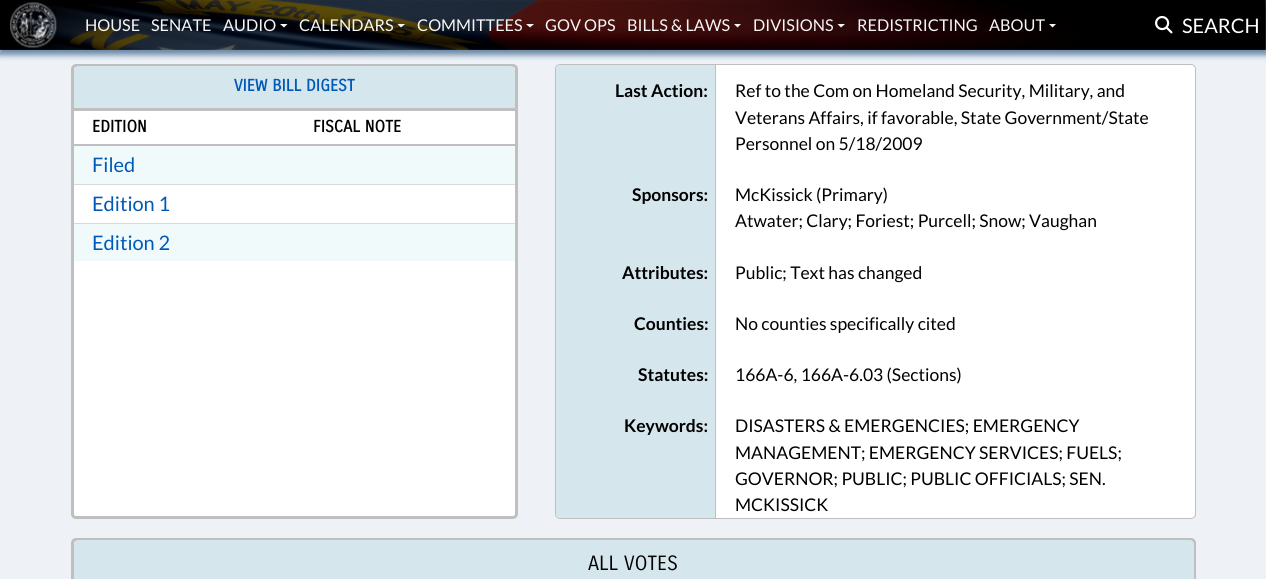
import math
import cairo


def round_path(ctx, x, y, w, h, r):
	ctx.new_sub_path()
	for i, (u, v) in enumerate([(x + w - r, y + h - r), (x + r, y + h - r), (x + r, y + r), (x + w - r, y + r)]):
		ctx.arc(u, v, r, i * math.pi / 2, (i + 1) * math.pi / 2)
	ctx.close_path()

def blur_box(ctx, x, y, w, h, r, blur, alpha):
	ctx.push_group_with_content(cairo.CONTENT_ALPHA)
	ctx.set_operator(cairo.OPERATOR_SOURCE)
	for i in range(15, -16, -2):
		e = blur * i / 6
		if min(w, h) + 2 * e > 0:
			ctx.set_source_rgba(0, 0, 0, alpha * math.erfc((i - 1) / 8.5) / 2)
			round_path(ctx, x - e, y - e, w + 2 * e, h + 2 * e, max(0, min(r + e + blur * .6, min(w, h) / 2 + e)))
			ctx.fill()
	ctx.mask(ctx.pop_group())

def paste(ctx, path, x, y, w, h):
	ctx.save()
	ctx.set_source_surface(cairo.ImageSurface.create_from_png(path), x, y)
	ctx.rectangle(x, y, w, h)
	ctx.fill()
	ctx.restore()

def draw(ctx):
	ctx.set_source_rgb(0.933, 0.949, 0.965)
	ctx.paint()
	ctx.set_source_rgb(1, 1, 1)
	round_path(ctx, 72.5, 65.5, 444, 452, 3.5)
	ctx.fill_preserve()
	ctx.set_source_rgb(0.749, 0.749, 0.749)
	ctx.set_line_width(3)
	ctx.stroke()
	ctx.set_source_rgb(1, 1, 1)
	round_path(ctx, 555.5, 64.5, 640, 454, 4.5)
	ctx.fill_preserve()
	ctx.set_source_rgb(0.749, 0.749, 0.749)
	ctx.set_line_width(1)
	ctx.stroke()
	ctx.set_source_rgb(0, 0.2, 0.4)
	blur_box(ctx, -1, 3, 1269, 52, 0, 3, 0.56)
	paste(ctx, 'media/1.png', 0, 0, 1266, 50)
	paste(ctx, 'media/2.png', 10, 2, 47, 46)
	ctx.select_font_face('Lato')
	ctx.set_font_size(16.25)
	ctx.set_source_rgb(0.961, 0.961, 0.961)
	for x, y, s in [
		(85, 31, 'HOUSE'),
		(151, 31, 'SENATE'),
		(223, 31, 'AUDIO'),
	]:
		ctx.move_to(x, y)
		ctx.show_text(s)
	ctx.new_path()
	ctx.move_to(280, 24)
	ctx.line_to(287.5, 24)
	ctx.line_to(284, 27.5)
	ctx.close_path()
	ctx.fill()
	ctx.move_to(299, 31)
	ctx.show_text('CALENDARS')
	ctx.new_path()
	ctx.move_to(397.5, 24)
	ctx.line_to(405, 24)
	ctx.line_to(401, 27.5)
	ctx.close_path()
	ctx.fill()
	ctx.move_to(417, 31)
	ctx.show_text('COMMITTEES')
	ctx.new_path()
	ctx.move_to(526, 24)
	ctx.line_to(534, 24)
	ctx.line_to(530, 27.5)
	ctx.close_path()
	ctx.fill()
	ctx.move_to(545, 31)
	ctx.show_text('GOV OPS')
	ctx.move_to(627, 31)
	ctx.show_text('BILLS & LAWS')
	ctx.new_path()
	ctx.move_to(734, 24)
	ctx.line_to(741, 24)
	ctx.line_to(737.5, 27.5)
	ctx.close_path()
	ctx.fill()
	ctx.move_to(753, 31)
	ctx.show_text('DIVISIONS')
	ctx.new_path()
	ctx.move_to(837.5, 24)
	ctx.line_to(845, 24)
	ctx.line_to(841, 27.5)
	ctx.close_path()
	ctx.fill()
	ctx.move_to(857, 31)
	ctx.show_text('REDISTRICTING')
	ctx.move_to(989, 31)
	ctx.show_text('ABOUT')
	ctx.new_path()
	ctx.move_to(1049, 24)
	ctx.line_to(1056, 24)
	ctx.line_to(1052.5, 27.5)
	ctx.close_path()
	ctx.fill()
	paste(ctx, 'media/3.png', 1155, 15, 18, 19)
	ctx.set_font_size(20)
	ctx.set_source_rgb(1, 1, 1)
	ctx.move_to(1182, 33)
	ctx.show_text('SEARCH')
	ctx.set_source_rgb(0.835, 0.902, 0.929)
	ctx.new_path()
	ctx.move_to(78, 66)
	ctx.line_to(511, 66)
	ctx.curve_to(513, 66, 515, 68, 515, 70)
	ctx.line_to(515, 110)
	ctx.line_to(74, 110)
	ctx.line_to(74, 70)
	ctx.curve_to(74, 68, 76, 66, 78, 66)
	ctx.close_path()
	ctx.fill()
	ctx.set_source_rgb(0.749, 0.749, 0.749)
	ctx.rectangle(74, 108, 441, 3)
	ctx.fill()
	ctx.select_font_face('Carrois Gothic', cairo.FONT_SLANT_NORMAL, cairo.FONT_WEIGHT_BOLD)
	ctx.set_font_size(16.25)
	ctx.set_source_rgb(0, 0.349, 0.722)
	ctx.move_to(234, 91)
	ctx.show_text('VIEW BILL DIGEST')
	ctx.set_source_rgb(0.749, 0.749, 0.749)
	ctx.rectangle(74, 144, 441, 2)
	ctx.fill()
	ctx.set_source_rgb(0, 0, 0)
	ctx.move_to(92, 132)
	ctx.show_text('EDITION')
	ctx.move_to(313, 132)
	ctx.show_text('FISCAL NOTE')
	ctx.set_source_rgb(0.941, 0.98, 0.984)
	ctx.rectangle(74, 146, 441, 38)
	ctx.fill()
	ctx.select_font_face('Lato')
	ctx.set_font_size(20)
	ctx.set_source_rgb(0, 0.349, 0.722)
	ctx.move_to(92, 172)
	ctx.show_text('Filed')
	ctx.set_source_rgb(0.851, 0.851, 0.851)
	ctx.rectangle(74, 184, 441, 1)
	ctx.fill()
	ctx.set_source_rgb(0, 0.349, 0.722)
	ctx.move_to(92, 211)
	ctx.show_text('Edition 1')
	ctx.set_source_rgb(0.941, 0.98, 0.984)
	ctx.rectangle(74, 224, 441, 37)
	ctx.fill()
	ctx.set_source_rgb(0.851, 0.851, 0.851)
	ctx.rectangle(74, 223, 441, 1)
	ctx.fill()
	ctx.set_source_rgb(0, 0.349, 0.722)
	ctx.move_to(92, 250)
	ctx.show_text('Edition 2')
	ctx.set_source_rgb(0.835, 0.902, 0.929)
	ctx.new_path()
	ctx.move_to(560, 65)
	ctx.line_to(716, 65)
	ctx.line_to(716, 169)
	ctx.line_to(556, 169)
	ctx.line_to(556, 69)
	ctx.curve_to(556, 67, 558, 65, 560, 65)
	ctx.close_path()
	ctx.fill()
	ctx.set_source_rgb(0.749, 0.749, 0.749)
	ctx.rectangle(715, 65, 1, 335)
	ctx.fill()
	ctx.select_font_face('Lato', cairo.FONT_SLANT_NORMAL, cairo.FONT_WEIGHT_BOLD)
	ctx.set_font_size(17.5)
	ctx.set_source_rgb(0, 0, 0)
	ctx.move_to(615, 97)
	ctx.show_text('Last Action:')
	ctx.select_font_face('Lato')
	for x, y, s in [
		(735, 97, 'Ref to the Com on Homeland Security, Military, and'),
		(735, 124, 'Veterans Affairs, if favorable, State Government/State'),
		(735, 150, 'Personnel on 5/18/2009'),
	]:
		ctx.move_to(x, y)
		ctx.show_text(s)
	ctx.set_source_rgb(0.835, 0.902, 0.929)
	ctx.rectangle(556, 169, 159, 231)
	ctx.fill()
	ctx.select_font_face('Lato', cairo.FONT_SLANT_NORMAL, cairo.FONT_WEIGHT_BOLD)
	ctx.set_source_rgb(0, 0, 0)
	ctx.move_to(632, 201)
	ctx.show_text('Sponsors:')
	ctx.select_font_face('Lato')
	ctx.move_to(735, 201)
	ctx.show_text('McKissick (Primary)')
	ctx.move_to(735, 227)
	ctx.show_text('Atwater; Clary; Foriest; Purcell; Snow; Vaughan')
	ctx.select_font_face('Lato', cairo.FONT_SLANT_NORMAL, cairo.FONT_WEIGHT_BOLD)
	ctx.move_to(622, 279)
	ctx.show_text('Attributes:')
	ctx.select_font_face('Lato')
	ctx.move_to(735, 279)
	ctx.show_text('Public; Text has changed')
	ctx.select_font_face('Lato', cairo.FONT_SLANT_NORMAL, cairo.FONT_WEIGHT_BOLD)
	ctx.move_to(634, 330)
	ctx.show_text('Counties:')
	ctx.select_font_face('Lato')
	ctx.move_to(735, 330)
	ctx.show_text('No counties specifically cited')
	ctx.select_font_face('Lato', cairo.FONT_SLANT_NORMAL, cairo.FONT_WEIGHT_BOLD)
	ctx.move_to(638, 381)
	ctx.show_text('Statutes:')
	ctx.select_font_face('Lato')
	ctx.move_to(735, 381)
	ctx.show_text('166A-6, 166A-6.03 (Sections)')
	ctx.set_source_rgb(0.835, 0.902, 0.929)
	ctx.new_path()
	ctx.move_to(556, 400)
	ctx.line_to(716, 400)
	ctx.line_to(716, 518)
	ctx.line_to(560, 518)
	ctx.curve_to(558, 518, 556, 516, 556, 514)
	ctx.close_path()
	ctx.fill()
	ctx.set_source_rgb(0.749, 0.749, 0.749)
	ctx.rectangle(715, 400, 1, 118)
	ctx.fill()
	ctx.select_font_face('Lato', cairo.FONT_SLANT_NORMAL, cairo.FONT_WEIGHT_BOLD)
	ctx.set_source_rgb(0, 0, 0)
	ctx.move_to(624, 432)
	ctx.show_text('Keywords:')
	ctx.select_font_face('Lato')
	for x, y, s in [
		(735, 432, 'DISASTERS & EMERGENCIES; EMERGENCY'),
		(735, 459, 'MANAGEMENT; EMERGENCY SERVICES; FUELS;'),
		(735, 485, 'GOVERNOR; PUBLIC; PUBLIC OFFICIALS; SEN.'),
		(735, 511, 'MCKISSICK'),
	]:
		ctx.move_to(x, y)
		ctx.show_text(s)
	round_path(ctx, 72.5, 539.5, 1122, 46, 3.5)
	ctx.set_source_rgb(0.749, 0.749, 0.749)
	ctx.set_line_width(3)
	ctx.stroke()
	ctx.set_source_rgb(0.835, 0.902, 0.929)
	ctx.new_path()
	ctx.move_to(78, 540)
	ctx.line_to(1190, 540)
	ctx.curve_to(1192, 540, 1194, 542, 1194, 544)
	ctx.line_to(1194, 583)
	ctx.line_to(74, 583)
	ctx.line_to(74, 544)
	ctx.curve_to(74, 542, 76, 540, 78, 540)
	ctx.close_path()
	ctx.fill()
	ctx.select_font_face('Carrois Gothic')
	ctx.set_font_size(20)
	ctx.set_source_rgb(0, 0, 0)
	ctx.move_to(588, 570)
	ctx.show_text('ALL VOTES')


surface = cairo.ImageSurface(cairo.FORMAT_RGB24, 1266, 579)
ctx = cairo.Context(surface)
options = cairo.FontOptions()
options.set_hint_metrics(cairo.HINT_METRICS_OFF)
options.set_hint_style(cairo.HINT_STYLE_NONE)
ctx.set_font_options(options)
ctx.set_miter_limit(4)
draw(ctx)
surface.write_to_png('image.png')
